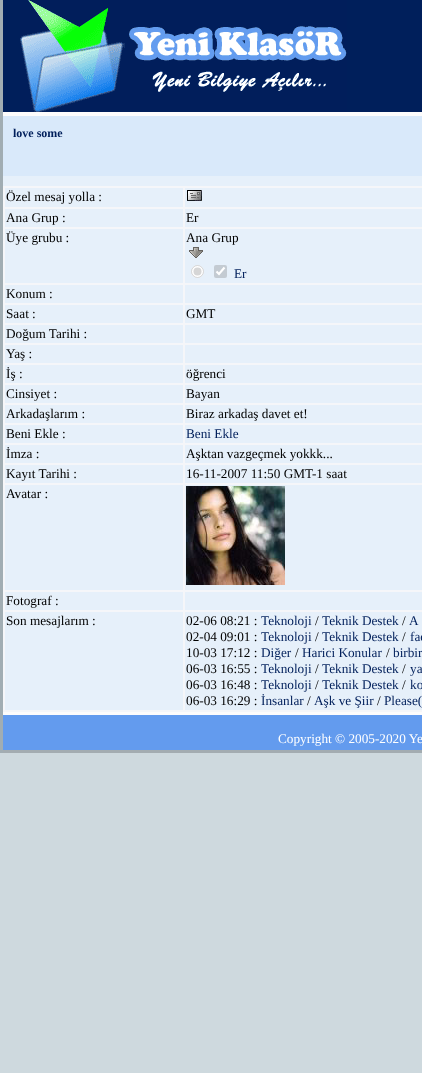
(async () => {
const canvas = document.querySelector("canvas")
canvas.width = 422
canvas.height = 1073
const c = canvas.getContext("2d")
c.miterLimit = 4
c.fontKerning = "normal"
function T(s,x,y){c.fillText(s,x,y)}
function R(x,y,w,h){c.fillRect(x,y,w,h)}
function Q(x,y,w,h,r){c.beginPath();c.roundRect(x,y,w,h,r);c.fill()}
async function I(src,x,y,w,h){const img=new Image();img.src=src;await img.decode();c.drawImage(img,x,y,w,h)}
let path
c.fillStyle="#ced9de"
R(0,0,422,1073)
await I("1.png",0,0,422,753)
c.fillStyle="#001f5b"
R(3,0,419,112)
await I("2.png",20,0,327,112)
c.fillStyle="#d9e9fa"
R(3,116,419,60)
c.font="bold 12px Liberation Serif"
c.fillStyle="#001f5b"
T("love some",13,137)
c.fillStyle="#e6f0fa"
R(3,176,419,10)
c.fillStyle="#f5f6f9"
R(3,186,419,526)
c.fillStyle="#e6f0fa"
R(5,188,178,19)
c.font="13.25px Liberation Serif"
c.fillStyle="#000"
T("Özel mesaj yolla :",6,201)
c.fillStyle="#e6f0fa"
R(185,188,237,19)
await I("3.png",187,190,15,11)
R(5,209,178,18)
c.fillStyle="#000"
T("Ana Grup :",6,222)
c.fillStyle="#e6f0fa"
R(185,209,237,18)
c.fillStyle="#000"
T("Er",186,222)
c.fillStyle="#e6f0fa"
R(5,229,178,54)
c.fillStyle="#000"
T("Üye grubu :",6,242)
c.fillStyle="#e6f0fa"
R(185,229,237,54)
c.fillStyle="#000"
T("Ana Grup",186,242)
await I("4.png",189,247,14,11)
c.fillStyle="#fff"
c.beginPath()
c.arc(197.5,271.5,6.5,0,7)
c.fill()
c.beginPath()
c.arc(197.5,271.5,6,0,7)
c.strokeStyle="#7676764d"
c.stroke()
c.fillStyle="#d6d6d6"
c.beginPath()
c.arc(197.5,271.5,4,0,7)
c.fill()
c.fillStyle="#c4cbd2"
Q(214,265,13,13,2)
path = new Path2D("M216.5 271.5l2.5 2.5l5.5-6.5")
c.strokeStyle="#fff"
c.lineWidth=2.1
c.stroke(path)
c.fillStyle="#001f5b"
T("Er",234,278)
c.fillStyle="#e6f0fa"
R(5,285,178,18)
c.fillStyle="#000"
T("Konum :",6,298)
c.fillStyle="#e6f0fa"
R(185,285,237,18)
R(5,305,178,18)
c.fillStyle="#000"
T("Saat :",6,318)
c.fillStyle="#e6f0fa"
R(185,305,237,18)
c.fillStyle="#000"
T("GMT",186,318)
c.fillStyle="#e6f0fa"
R(5,325,178,18)
c.fillStyle="#000"
T("Doğum Tarihi :",6,338)
c.fillStyle="#e6f0fa"
R(185,325,237,18)
R(5,345,178,18)
c.fillStyle="#000"
T("Yaş :",6,358)
c.fillStyle="#e6f0fa"
R(185,345,237,18)
R(5,365,178,18)
c.fillStyle="#000"
T("İş :",6,378)
c.fillStyle="#e6f0fa"
R(185,365,237,18)
c.fillStyle="#000"
T("öğrenci",186,378)
c.fillStyle="#e6f0fa"
R(5,385,178,18)
c.fillStyle="#000"
T("Cinsiyet :",6,398)
c.fillStyle="#e6f0fa"
R(185,385,237,18)
c.fillStyle="#000"
T("Bayan",186,398)
c.fillStyle="#e6f0fa"
R(5,405,178,18)
c.fillStyle="#000"
T("Arkadaşlarım :",6,418)
c.fillStyle="#e6f0fa"
R(185,405,237,18)
c.fillStyle="#000"
T("Biraz arkadaş davet et!",186,418)
c.fillStyle="#e6f0fa"
R(5,425,178,18)
c.fillStyle="#000"
T("Beni Ekle :",6,438)
c.fillStyle="#e6f0fa"
R(185,425,237,18)
c.fillStyle="#001f5b"
T("Beni Ekle",186,438)
c.fillStyle="#e6f0fa"
R(5,445,178,18)
c.fillStyle="#000"
T("İmza :",6,458)
c.fillStyle="#e6f0fa"
R(185,445,237,18)
c.fillStyle="#000"
T("Aşktan vazgeçmek yokkk...",186,458)
c.fillStyle="#e6f0fa"
R(5,465,178,18)
c.fillStyle="#000"
T("Kayıt Tarihi :",6,478)
c.fillStyle="#e6f0fa"
R(185,465,237,18)
c.fillStyle="#000"
T("16-11-2007 11:50 GMT-1 saat",186,478)
c.fillStyle="#e6f0fa"
R(5,485,178,105)
c.fillStyle="#000"
T("Avatar :",6,498)
c.fillStyle="#e6f0fa"
R(185,485,237,105)
await I("5.png",186,486,99,99)
R(5,592,178,18)
c.fillStyle="#000"
T("Fotograf :",6,605)
c.fillStyle="#e6f0fa"
R(185,592,237,18)
R(5,612,178,98)
c.fillStyle="#000"
T("Son mesajlarım :",6,625)
c.fillStyle="#e6f0fa"
R(185,612,237,98)
c.fillStyle="#000"
T("02-06 08:21 :",186,625)
c.fillStyle="#001f5b"
T("Teknoloji",261,625)
c.fillStyle="#000"
T("/",315,625)
c.fillStyle="#001f5b"
T("Teknik Destek",322,625)
c.fillStyle="#000"
T("/",402,625)
c.fillStyle="#001f5b"
T("A",409,625)
c.fillStyle="#000"
T("02-04 09:01 :",186,641)
c.fillStyle="#001f5b"
T("Teknoloji",261,641)
c.fillStyle="#000"
T("/",315,641)
c.fillStyle="#001f5b"
T("Teknik Destek",322,641)
c.fillStyle="#000"
T("/",402,641)
c.fillStyle="#001f5b"
T("fac",410,641)
c.fillStyle="#000"
T("10-03 17:12 :",186,657)
c.fillStyle="#001f5b"
T("Diğer",261,657)
c.fillStyle="#000"
T("/",295,657)
c.fillStyle="#001f5b"
T("Harici Konular",302,657)
c.fillStyle="#000"
T("/",386,657)
c.fillStyle="#001f5b"
T("birbir",393,657)
c.fillStyle="#000"
T("06-03 16:55 :",186,673)
c.fillStyle="#001f5b"
T("Teknoloji",261,673)
c.fillStyle="#000"
T("/",315,673)
c.fillStyle="#001f5b"
T("Teknik Destek",322,673)
c.fillStyle="#000"
T("/",402,673)
c.fillStyle="#001f5b"
T("ya",410,673)
c.fillStyle="#000"
T("06-03 16:48 :",186,689)
c.fillStyle="#001f5b"
T("Teknoloji",261,689)
c.fillStyle="#000"
T("/",315,689)
c.fillStyle="#001f5b"
T("Teknik Destek",322,689)
c.fillStyle="#000"
T("/",402,689)
c.fillStyle="#001f5b"
T("ko",410,689)
c.fillStyle="#000"
T("06-03 16:29 :",186,705)
c.fillStyle="#001f5b"
T("İnsanlar",261,705)
c.fillStyle="#000"
T("/",307,705)
c.fillStyle="#001f5b"
T("Aşk ve Şiir",314,705)
c.fillStyle="#000"
T("/",377,705)
c.fillStyle="#001f5b"
T("Please(",384,705)
c.fillStyle="#639bee"
R(3,715,419,35)
c.fillStyle="#a3acb1"
R(3,750,419,3)
c.fillStyle="#fff"
T("Copyright © 2005-2020 Ye",278,743)
})()
